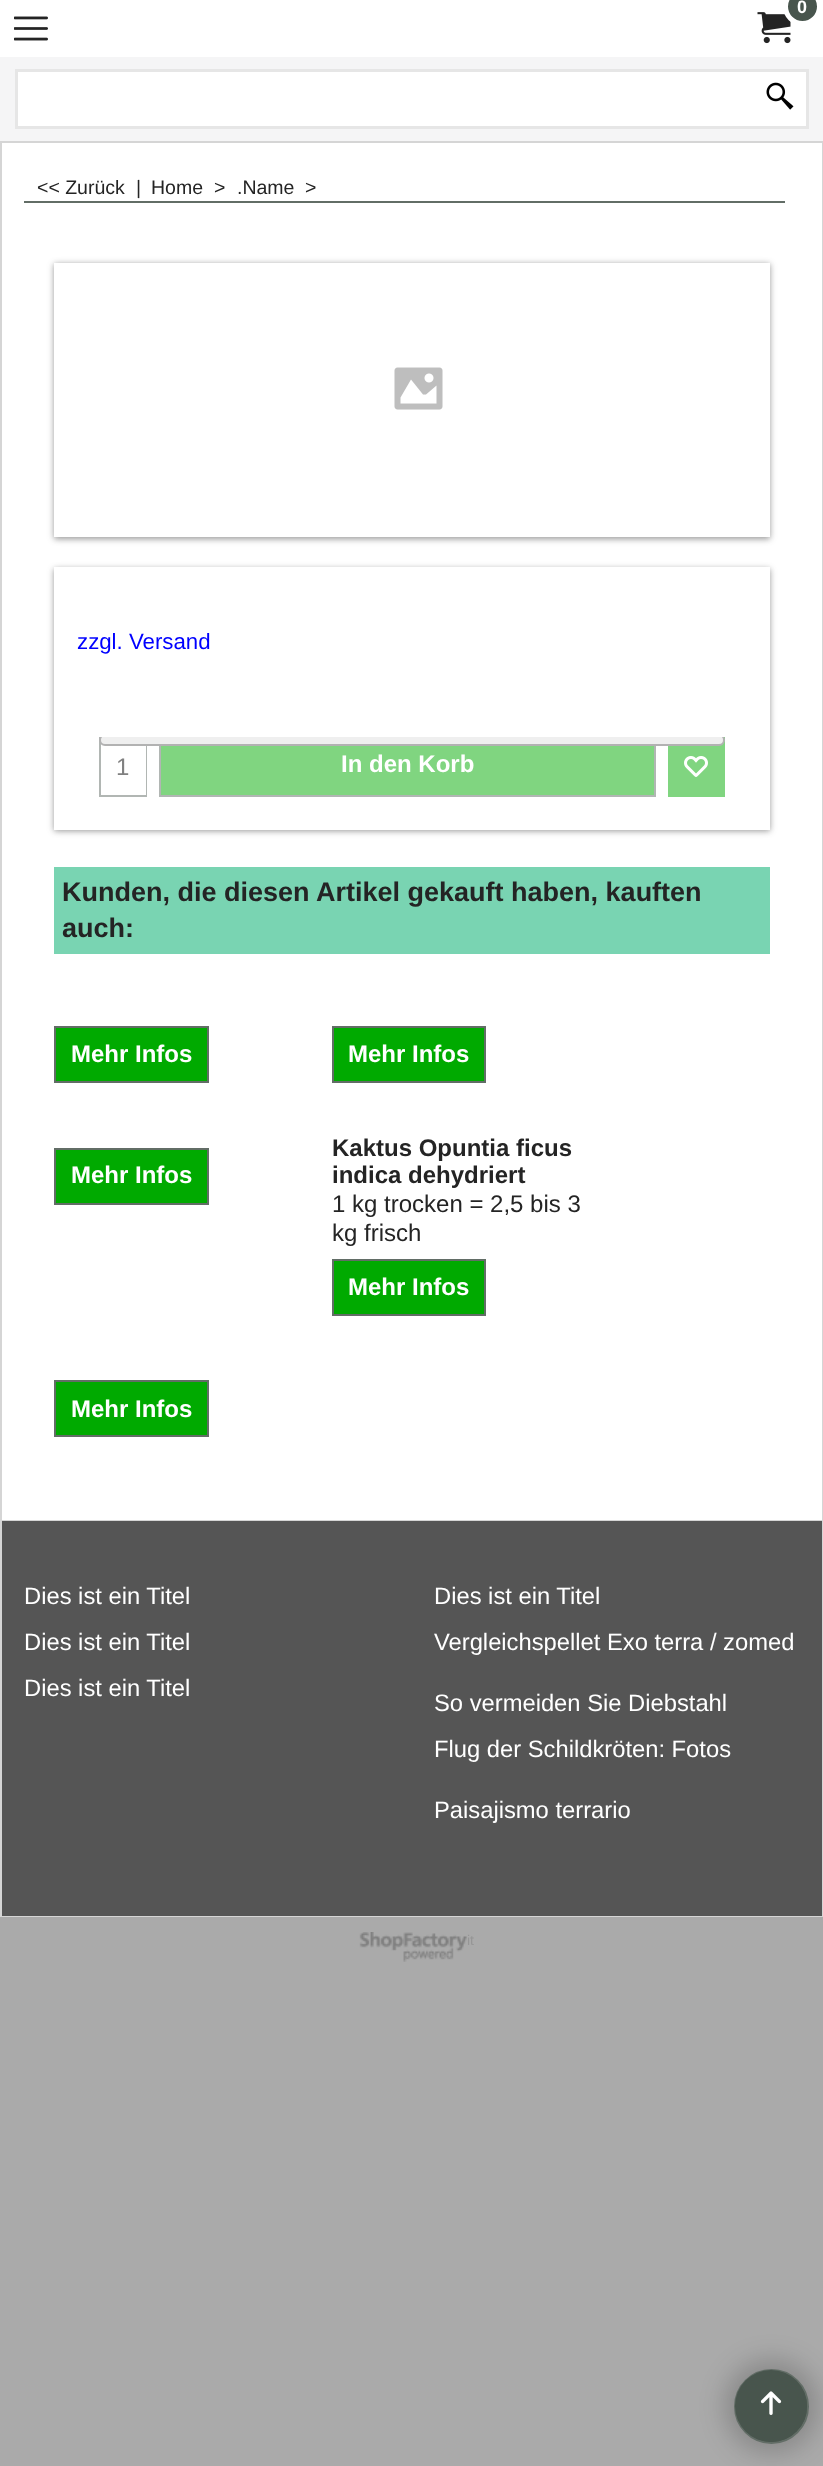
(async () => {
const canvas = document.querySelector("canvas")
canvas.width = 823
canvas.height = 2466
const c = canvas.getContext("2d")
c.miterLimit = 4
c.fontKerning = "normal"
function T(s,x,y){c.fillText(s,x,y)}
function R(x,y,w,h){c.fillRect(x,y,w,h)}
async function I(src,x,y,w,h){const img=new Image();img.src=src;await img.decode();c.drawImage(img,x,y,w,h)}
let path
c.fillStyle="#aaa"
R(0,0,823,2466)
c.fillStyle="#fff"
R(0,0,823,57)
await I("1.png",757,12,34,32)
c.fillStyle="#48554d"
c.beginPath()
c.arc(802.5,6.5,17,0,7)
c.fill()
c.strokeStyle="#fff"
c.lineWidth=5
c.stroke()
c.font="bold 18px Liberation Sans"
c.fillStyle="#fff"
T("0",797,13)
await I("2.png",14,16,34,25)
c.fillStyle="#f5f5f6"
R(0,57,823,84)
c.fillStyle="#fff"
c.beginPath()
c.rect(16.5,70.5,791,57)
c.fill()
c.strokeStyle="#e6e6e6"
c.lineWidth=3
c.stroke()
await I("3.png",766,82,28,28)
R(2,143,820,1377)
c.strokeStyle="#d5d5d5"
c.lineWidth=2
c.strokeRect(1,142,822,1774)
c.fillStyle="#626d66"
R(24,201,761,2)
c.font="19.5px Liberation Sans"
c.fillStyle="#242424"
T("<< Zurück",37,194)
T("|",136,194)
T("Home",151,194)
T(">",214,194)
T(".Name",237,194)
T(">",305,194)
c.save()
path = new Path2D("M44 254h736v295h-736zm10 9h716v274h-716z")
c.clip(path,"evenodd")
c.fillStyle="#32323280"
c.filter="blur(3px)"
c.beginPath()
c.rect(54,264,716,275)
c.fill()
c.filter="none"
c.restore()
await I("4.png",394,367,49,43)
c.save()
path = new Path2D("M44 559h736v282h-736zm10 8h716v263h-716z")
c.clip(path,"evenodd")
c.fillStyle="#32323280"
c.filter="blur(3px)"
c.beginPath()
c.rect(54,569,716,262)
c.fill()
c.filter="none"
c.restore()
c.font="22.25px Liberation Sans"
c.fillStyle="#00f"
T("zzgl. Versand",77,649)
c.strokeStyle="#b1b6b3"
c.strokeRect(100,738,46,58)
c.fillStyle="#fff"
R(145,744,1,51)
c.fillStyle="#80d580"
R(161,746,493,49)
c.strokeRect(160,738,495,58)
R(668,737,57,60)
c.save()
c.beginPath()
c.rect(99,737,626,60)
c.clip()
c.fillStyle="#efefef"
c.beginPath()
c.roundRect(100,735,624,10,5)
c.fill()
c.strokeStyle="#b2b2b2"
c.stroke()
c.restore()
c.font="24px Liberation Sans"
c.fillStyle="#808080"
T("1",116,775)
c.font="bold 24px Liberation Sans"
c.fillStyle="#fff"
T("In den Korb",341,772)
await I("5.png",684,756,24,21)
c.fillStyle="#79d4b2"
R(54,867,716,87)
c.font="bold 27px Liberation Sans"
c.fillStyle="#242424"
T("Kunden, die diesen Artikel gekauft haben, kauften",62,901)
T("auch:",62,937)
c.fillStyle="#0a0"
c.beginPath()
c.rect(55,1027,153,55)
c.fill()
c.strokeStyle="#626d66"
c.stroke()
c.font="bold 24px Liberation Sans"
c.fillStyle="#fff"
T("Mehr Infos",71,1062)
c.fillStyle="#0a0"
c.beginPath()
c.rect(333,1027,152,55)
c.fill()
c.stroke()
c.fillStyle="#fff"
T("Mehr Infos",348,1062)
c.fillStyle="#0a0"
c.beginPath()
c.rect(55,1149,153,55)
c.fill()
c.stroke()
c.fillStyle="#fff"
T("Mehr Infos",71,1183)
c.fillStyle="#242424"
T("Kaktus Opuntia ficus",332,1156)
T("indica dehydriert",332,1183)
c.font="24px Liberation Sans"
T("1 kg trocken = 2,5 bis 3",332,1212)
T("kg frisch",332,1241)
c.fillStyle="#0a0"
c.beginPath()
c.rect(333,1260,152,55)
c.fill()
c.stroke()
c.font="bold 24px Liberation Sans"
c.fillStyle="#fff"
T("Mehr Infos",348,1295)
c.fillStyle="#0a0"
c.beginPath()
c.rect(55,1381,153,55)
c.fill()
c.stroke()
c.fillStyle="#fff"
T("Mehr Infos",71,1417)
c.fillStyle="#d5d5d5"
R(2,1520,820,1)
c.fillStyle="#555"
R(2,1521,820,395)
c.font="23.75px Liberation Sans"
c.fillStyle="#fff"
T("Dies ist ein Titel",24,1604)
T("Dies ist ein Titel",24,1650)
T("Dies ist ein Titel",24,1696)
T("Dies ist ein Titel",434,1604)
T("Vergleichspellet Exo terra / zomed",434,1650)
T("So vermeiden Sie Diebstahl",434,1711)
T("Flug der Schildkröten: Fotos",434,1757)
T("Paisajismo terrario",434,1818)
await I("6.png",359,1932,108,30)
c.font="14px Liberation Sans"
c.fillStyle="#969696"
T("it",467,1945)
c.fillStyle="#00000033"
c.filter="blur(13px)"
c.beginPath()
c.roundRect(725,2360,93,93,46.5)
c.fill()
c.filter="none"
c.fillStyle="#48554d"
c.beginPath()
c.arc(771.5,2406.5,36.5,0,7)
c.fill()
c.stroke()
c.beginPath()
c.arc(771,2406,36,0,7)
c.fill()
await I("7.png",760,2391,22,24)
})()
